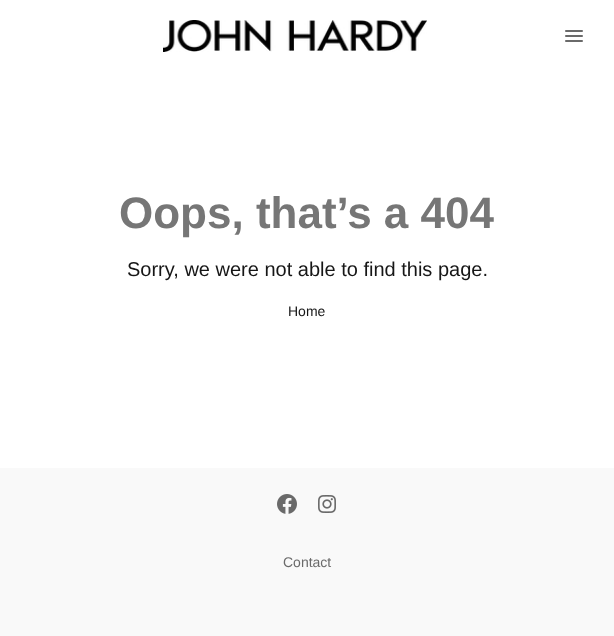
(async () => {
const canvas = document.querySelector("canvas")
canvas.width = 614
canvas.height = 636
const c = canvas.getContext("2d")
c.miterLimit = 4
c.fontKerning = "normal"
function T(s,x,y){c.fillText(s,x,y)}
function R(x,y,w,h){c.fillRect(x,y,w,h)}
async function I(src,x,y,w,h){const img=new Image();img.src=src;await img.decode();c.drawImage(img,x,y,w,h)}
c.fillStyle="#fff"
R(0,0,614,636)
await I("1.png",163,20,264,32)
await I("2.png",565,30,18,12)
c.font="bold 44px Liberation Sans"
c.fillStyle="#767676"
T("Oops, that’s a 404",119,228)
c.font="20px Liberation Sans"
c.fillStyle="#161616"
T("Sorry, we were not able to find this page.",127,276)
c.font="14px Liberation Sans"
T("Home",288,316)
c.fillStyle="#f9f9f9"
R(0,468,614,168)
await I("3.png",277,494,20,20)
await I("4.png",318,495,18,18)
c.fillStyle="#6a6a6a"
T("Contact",283,567)
})()
